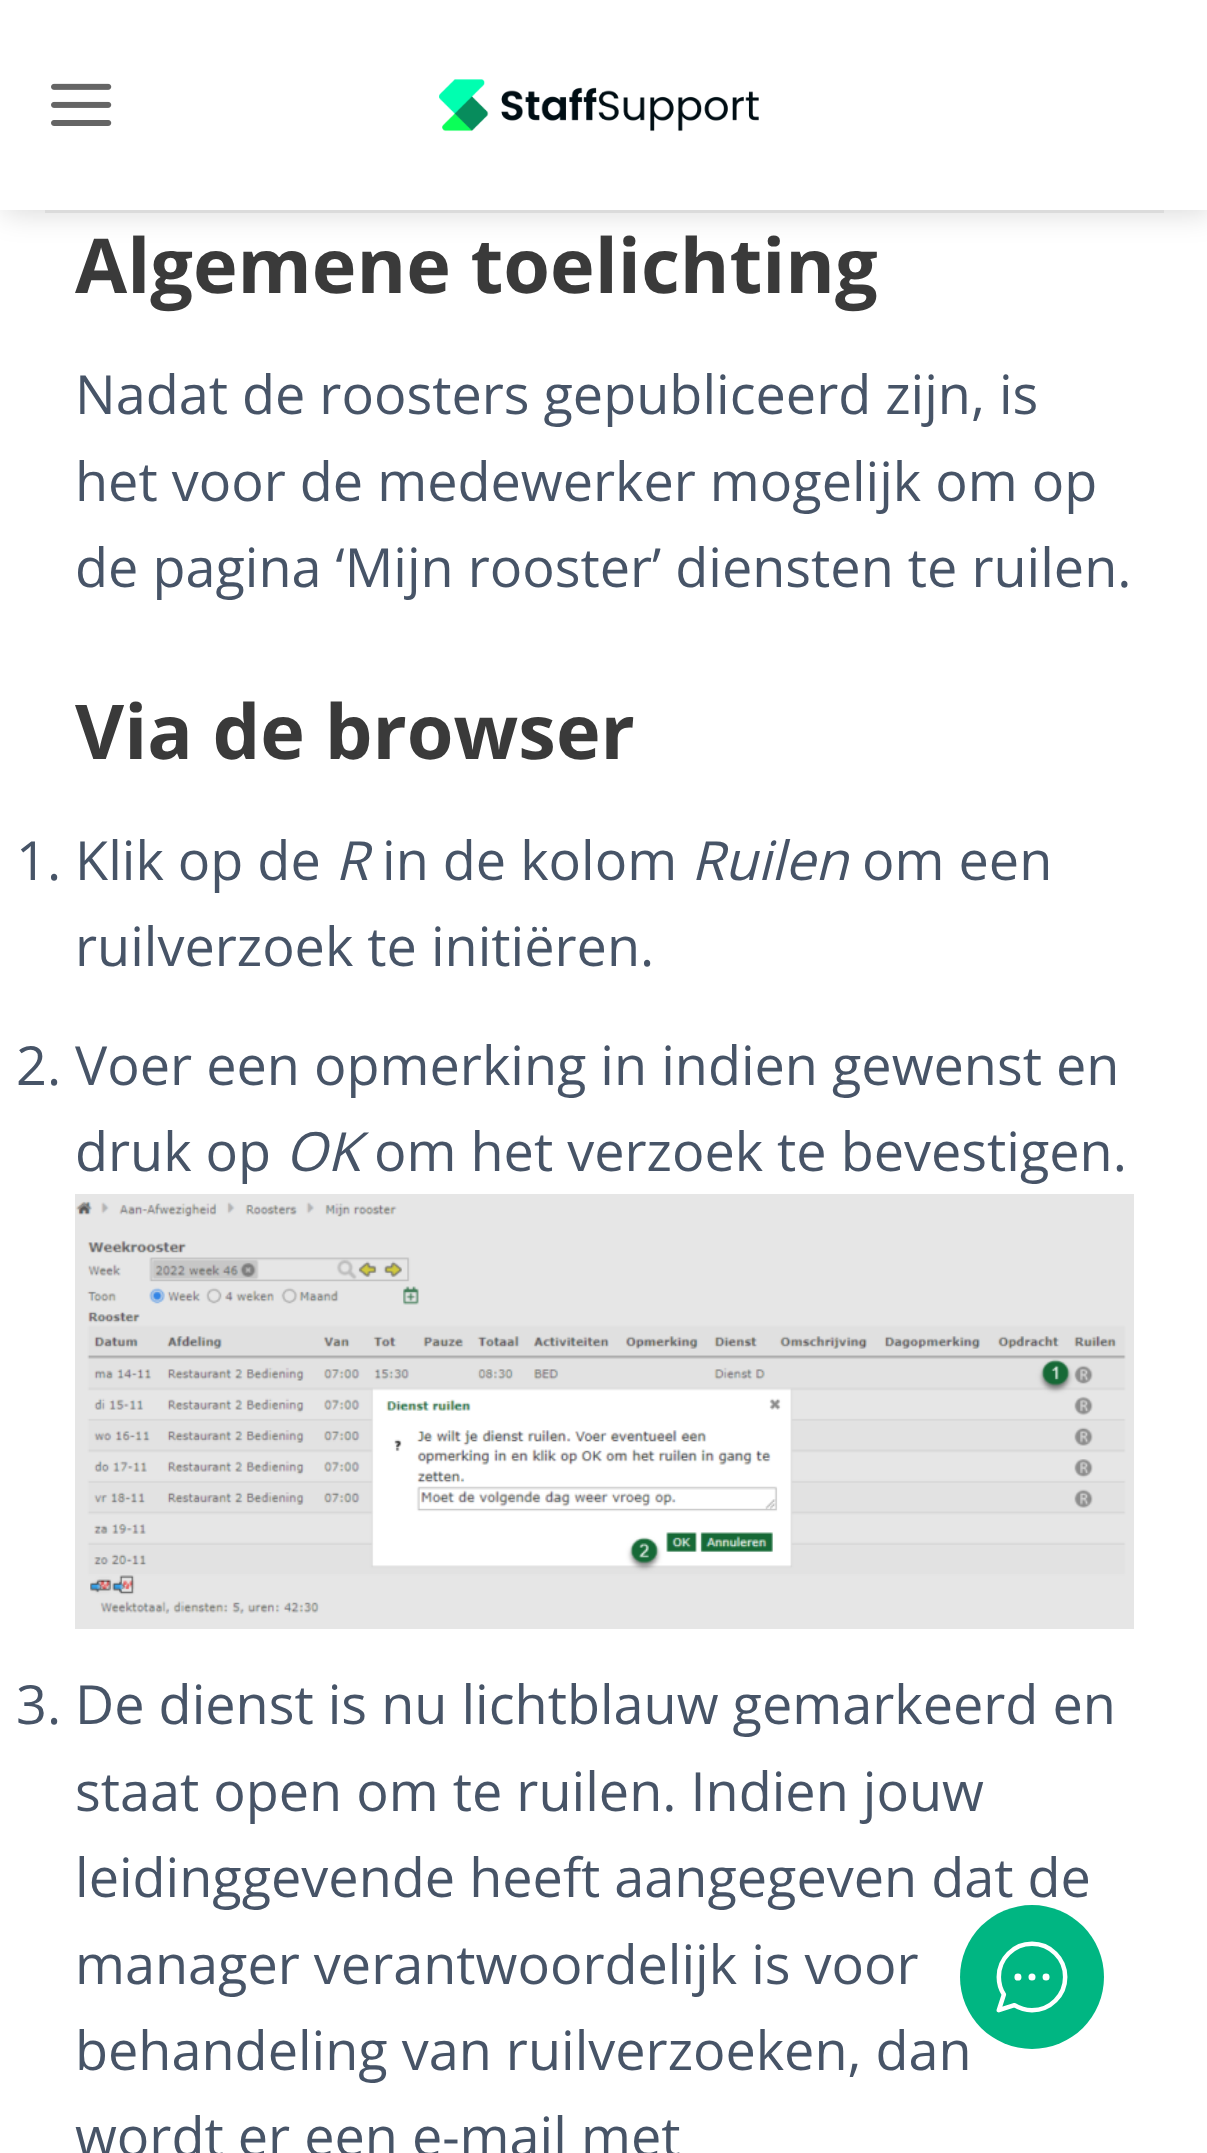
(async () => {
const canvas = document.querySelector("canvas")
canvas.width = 1207
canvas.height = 2153
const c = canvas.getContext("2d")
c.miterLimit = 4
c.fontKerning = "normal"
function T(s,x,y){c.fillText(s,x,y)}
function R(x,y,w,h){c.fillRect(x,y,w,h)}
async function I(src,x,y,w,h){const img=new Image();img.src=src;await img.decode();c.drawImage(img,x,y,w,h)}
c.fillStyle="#fff"
R(0,0,1207,2153)
c.fillStyle="#00000026"
c.filter="blur(15px)"
c.beginPath()
c.rect(3,3,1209,210)
c.fill()
c.filter="none"
c.fillStyle="#fff"
R(0,0,1207,210)
await I("1.png",51,83,61,43)
await I("2.png",439,79,320,53)
c.fillStyle="#dbdbdb"
R(45,210,1119,3)
c.font="bold 75.6px Open Sans"
c.fillStyle="#3a3a3a"
T("Algemene toelichting",75,293)
c.font="54px Open Sans"
c.fillStyle="#475467"
T("Nadat de roosters gepubliceerd zijn, is",75,414)
T("het voor de medewerker mogelijk om op",75,501)
T("de pagina ‘Mijn rooster’ diensten te ruilen.",75,587)
c.font="bold 75.6px Open Sans"
c.fillStyle="#3a3a3a"
T("Via de browser",75,759)
c.font="54px Open Sans"
c.fillStyle="#475467"
T("1. Klik op de",16,880)
c.font="italic 54px Open Sans"
T("R",335,880)
c.font="54px Open Sans"
T("in de kolom",382,880)
c.font="italic 54px Open Sans"
T("Ruilen",691,880)
c.font="54px Open Sans"
T("om een",862,880)
T("ruilverzoek te initiëren.",75,966)
T("2. Voer een opmerking in indien gewenst en",16,1085)
T("druk op",75,1171)
c.font="italic 54px Open Sans"
T("OK",285,1171)
c.font="54px Open Sans"
T("om het verzoek te bevestigen.",374,1171)
await I("3.png",75,1194,1059,435)
T("3. De dienst is nu lichtblauw gemarkeerd en",16,1724)
T("staat open om te ruilen. Indien jouw",75,1811)
T("leidinggevende heeft aangegeven dat de",75,1897)
T("manager verantwoordelijk is voor",75,1984)
T("behandeling van ruilverzoeken, dan",75,2070)
T("wordt er een e-mail met",75,2156)
c.fillStyle="#00b682"
c.beginPath()
c.arc(1032,1977,72,0,7)
c.fill()
await I("4.png",996,1941,72,72)
})()
